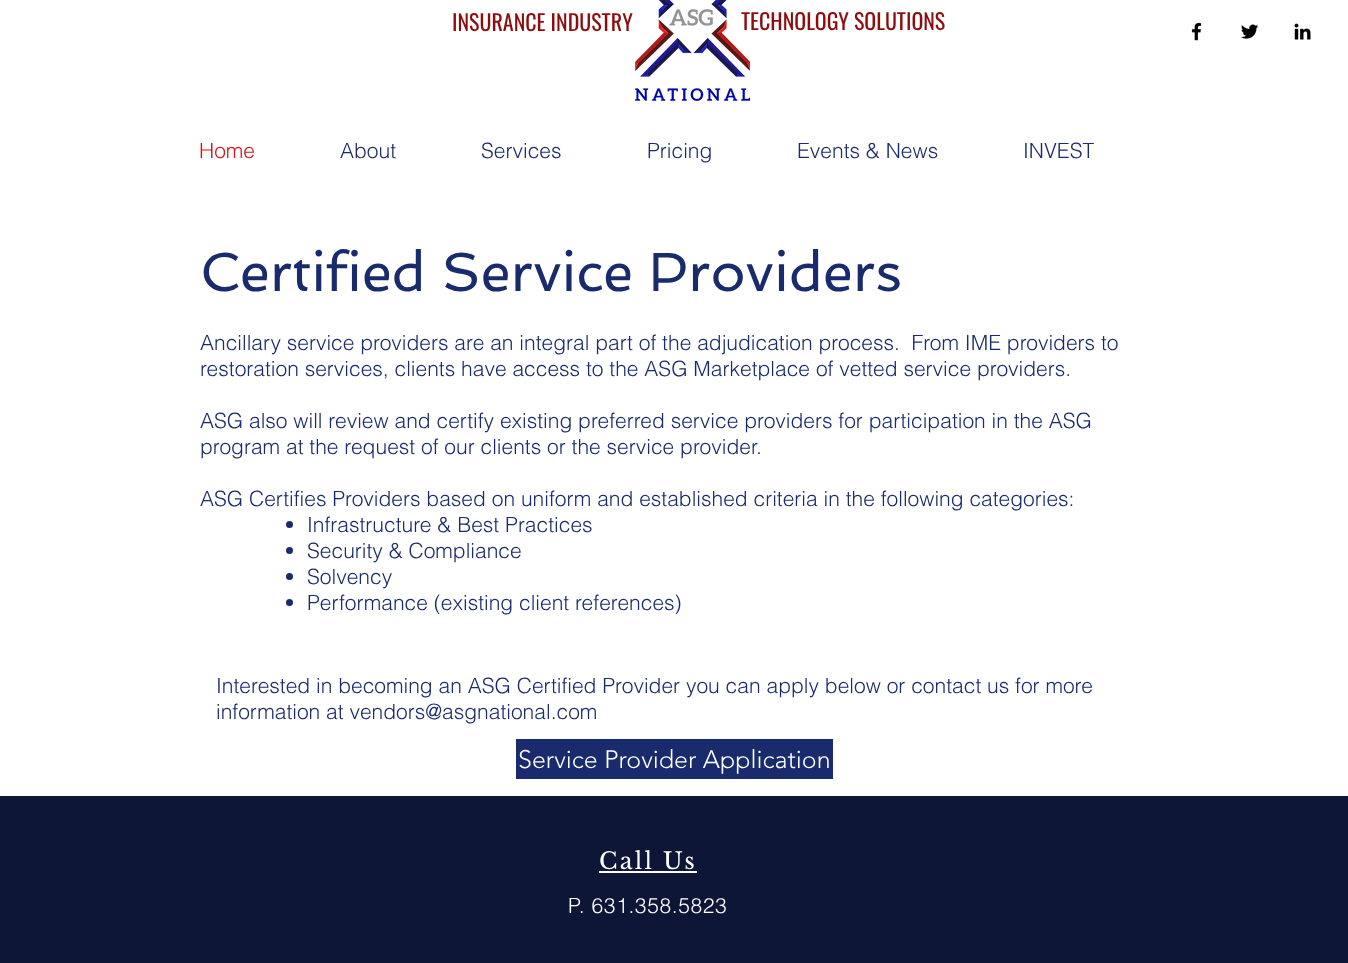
(async () => {
const canvas = document.querySelector("canvas")
canvas.width = 1348
canvas.height = 963
const c = canvas.getContext("2d")
c.miterLimit = 4
c.fontKerning = "normal"
function T(s,x,y){c.fillText(s,x,y)}
function R(x,y,w,h){c.fillRect(x,y,w,h)}
async function I(src,x,y,w,h){const img=new Image();img.src=src;await img.decode();c.drawImage(img,x,y,w,h)}
c.fillStyle="#fff"
R(0,0,1348,963)
c.font="22px Oswald"
c.fillStyle="#8d0d0f"
T("INSURANCE INDUSTRY",452,31)
T("TECHNOLOGY SOLUTIONS",741,30)
await I("1.png",635,0,115,101)
await I("2.png",1191,22,11,19)
await I("3.png",1241,24,18,15)
await I("4.png",1294,23,17,17)
c.font="300 21px helvetica"
c.fillStyle="#d41317"
T("Home",199,158)
c.fillStyle="#1a2b6d"
T("About",340,158)
T("Services",481,158)
T("Pricing",647,158)
T("Events & News",797,158)
T("INVEST",1023,158)
c.font="55px Spinnaker"
T("Certified Service Providers",200,291)
c.font="300 21px helvetica"
T("Ancillary service providers are an integral part of the adjudication process.  From IME providers to",200,350)
T("restoration services, clients have access to the ASG Marketplace of vetted service providers.",200,376)
T("ASG also will review and certify existing preferred service providers for participation in the ASG",200,428)
T("program at the request of our clients or the service provider.",200,454)
T("ASG Certifies Providers based on uniform and established criteria in the following categories:",200,506)
c.beginPath()
c.arc(289.5,524.5,3.5,0,7)
c.fill()
T("Infrastructure & Best Practices",307,532)
c.beginPath()
c.arc(289.5,550.5,3.5,0,7)
c.fill()
T("Security & Compliance",307,558)
c.beginPath()
c.arc(289.5,576.5,3.5,0,7)
c.fill()
T("Solvency",307,584)
c.beginPath()
c.arc(289.5,602.5,3.5,0,7)
c.fill()
T("Performance (existing client references)",307,610)
T("Interested in becoming an ASG Certified Provider you can apply below or contact us for more",216,693)
T("information at vendors@asgnational.com",216,719)
R(516,739,317,40)
c.font="300 25px 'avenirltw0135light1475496'"
c.fillStyle="#fff"
T("Service Provider Application",518,768)
c.fillStyle="#0d1637"
R(0,796,1348,167)
c.letterSpacing="2.25px"
c.font="23px Libre Baskerville"
c.fillStyle="#fff"
T("Call Us",599,869)
c.fillStyle="#fffffe"
R(599,871,98,2)
c.letterSpacing="0.6px"
c.font="300 21px helvetica"
c.fillStyle="#fff"
T("P. 631.358.5823",568,913)
})()
